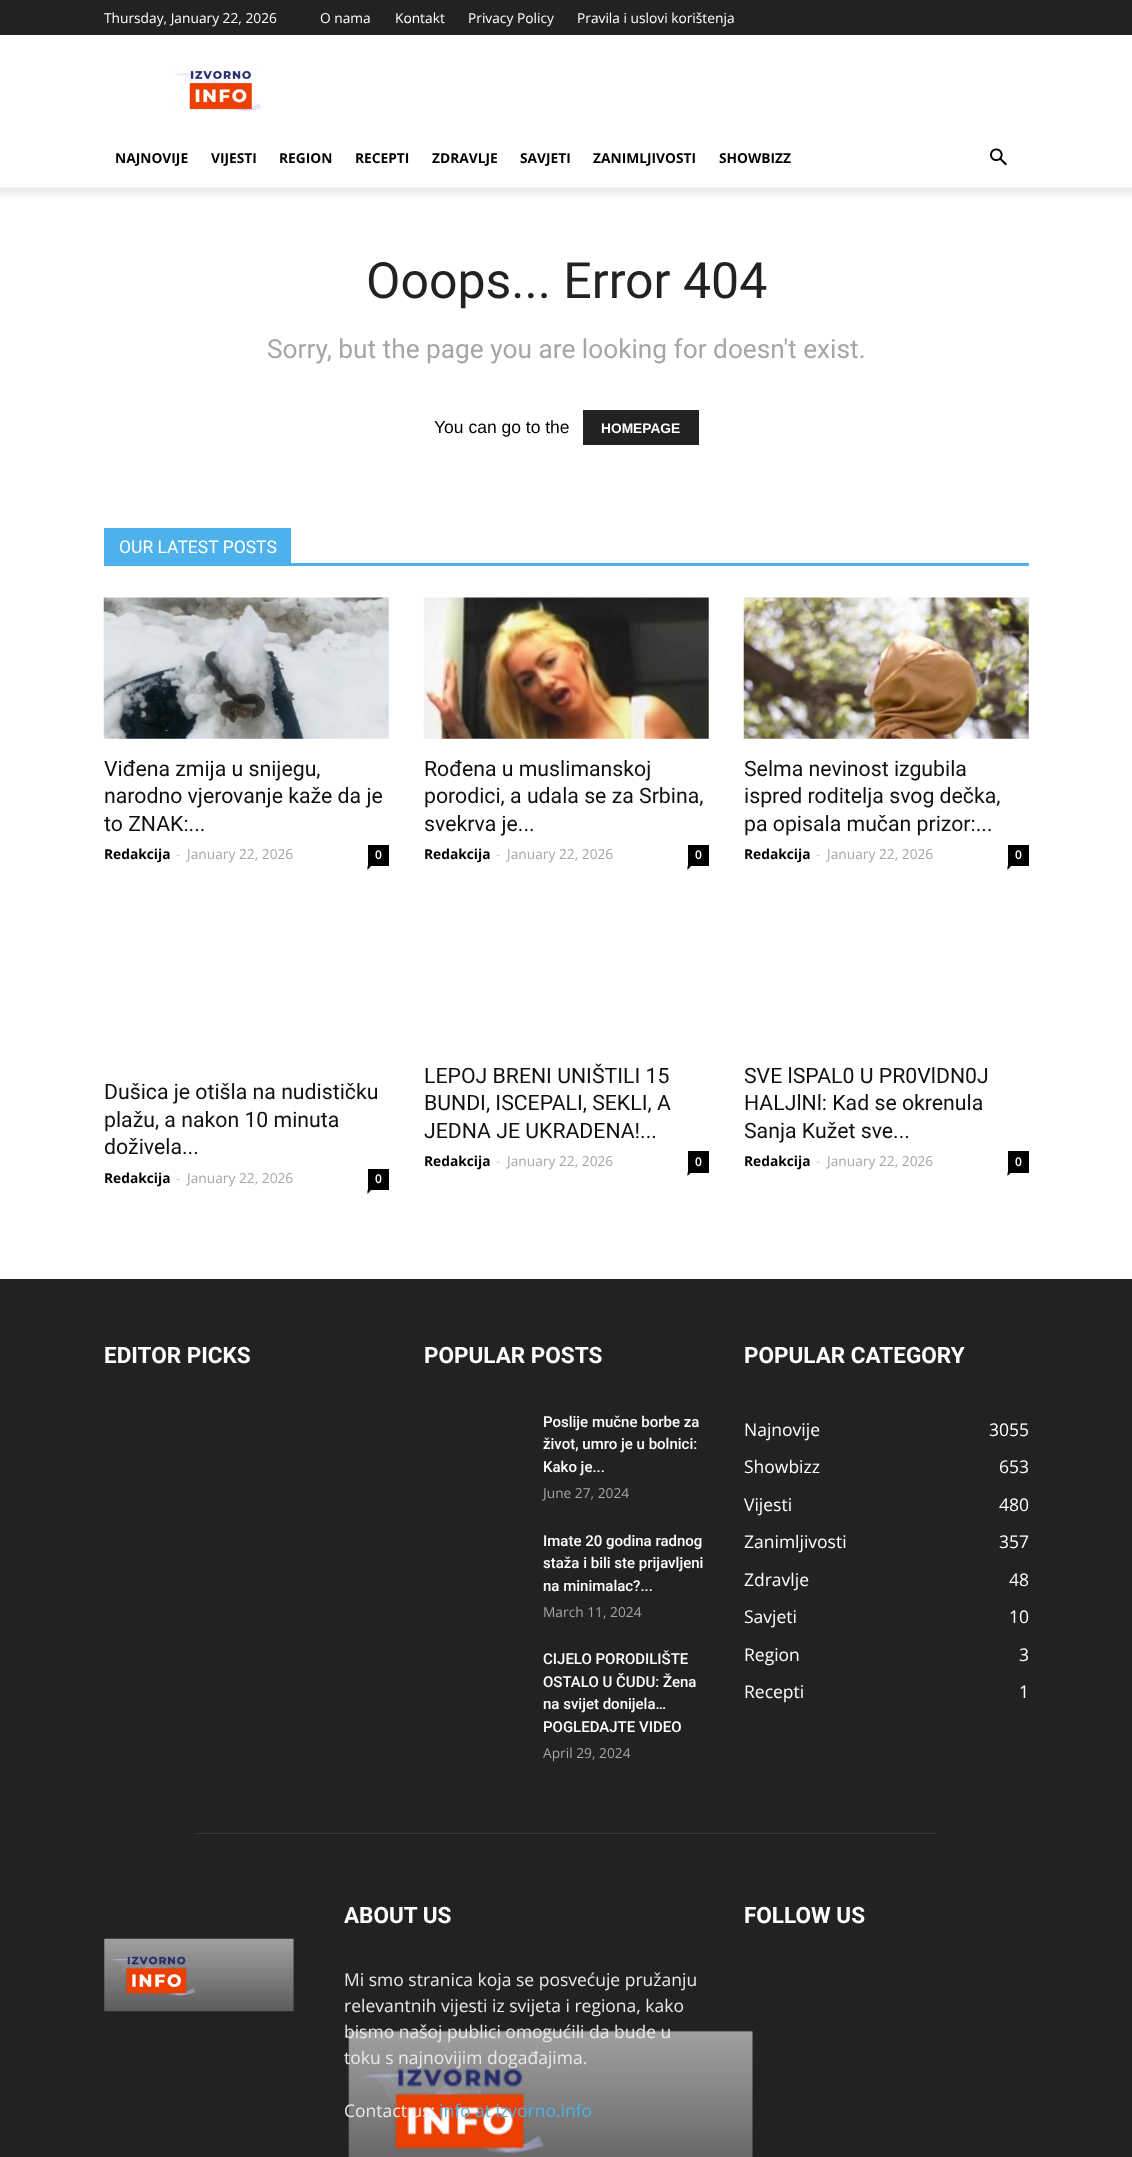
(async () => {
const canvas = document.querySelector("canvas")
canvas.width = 1132
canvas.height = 2157
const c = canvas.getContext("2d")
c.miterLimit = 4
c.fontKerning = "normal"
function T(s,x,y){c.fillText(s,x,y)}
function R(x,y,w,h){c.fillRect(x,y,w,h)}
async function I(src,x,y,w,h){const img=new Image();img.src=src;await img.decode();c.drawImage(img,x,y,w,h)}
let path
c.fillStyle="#fff"
R(0,0,1132,2157)
c.fillStyle="#222"
R(0,0,1132,35)
c.font="13.75px Open Sans"
c.fillStyle="#fff"
T("Thursday, January 22, 2026",104,23)
T("O nama",320,23)
T("Kontakt",395,23)
T("Privacy Policy",468,23)
T("Pravila i uslovi korištenja",577,23)
await I("1.png",173,70,89,41)
c.font="bold 13.75px Open Sans"
c.fillStyle="#000"
T("NAJNOVIJE",115,163)
T("VIJESTI",211,163)
T("REGION",279,163)
T("RECEPTI",355,163)
T("ZDRAVLJE",432,163)
T("SAVJETI",520,163)
T("ZANIMLJIVOSTI",593,163)
T("SHOWBIZZ",719,163)
await I("2.png",990,148,17,18)
await I("3.png",0,187,1132,11)
c.font="50px Roboto"
c.fillStyle="#222"
T("Ooops... Error 404",366,298)
c.font="26.25px Roboto"
c.fillStyle="#a6a6a6"
T("Sorry, but the page you are looking for doesn't exist.",267,358)
c.font="17.5px Liberation Sans"
c.fillStyle="#000"
T("You can go to the",434,433)
c.fillStyle="#222"
R(583,410,116,35)
c.font="bold 13.75px Liberation Sans"
c.fillStyle="#fff"
T("HOMEPAGE",601,433)
c.fillStyle="#4db2ec"
R(104,563,925,3)
R(104,528,187,35)
c.font="17.5px Roboto"
c.fillStyle="#fff"
T("OUR LATEST POSTS",119,553)
await I("4.png",103,597,286,142)
c.font="21.25px Roboto"
c.fillStyle="#111"
T("Viđena zmija u snijegu,",104,776)
T("narodno vjerovanje kaže da je",104,803)
T("to ZNAK:...",104,831)
c.font="bold 13.75px Open Sans"
c.fillStyle="#000"
T("Redakcija",104,859)
c.font="13.75px Open Sans"
c.fillStyle="#ccc"
T("-",176,859)
c.fillStyle="#a6a6a6"
T("January 22, 2026",187,859)
c.fillStyle="#000"
R(368,845,21,21)
c.font="600 12px Open Sans"
c.fillStyle="#fff"
T("0",375,859)
c.fillStyle="#000"
path = new Path2D("M367.5 866h3.5l-3.5 4z")
c.fill(path)
await I("5.png",423,597,286,142)
c.font="21.25px Roboto"
c.fillStyle="#111"
T("Rođena u muslimanskoj",424,776)
T("porodici, a udala se za Srbina,",424,803)
T("svekrva je...",424,831)
c.font="bold 13.75px Open Sans"
c.fillStyle="#000"
T("Redakcija",424,859)
c.font="13.75px Open Sans"
c.fillStyle="#ccc"
T("-",496,859)
c.fillStyle="#a6a6a6"
T("January 22, 2026",507,859)
c.fillStyle="#000"
R(688,845,21,21)
c.font="600 12px Open Sans"
c.fillStyle="#fff"
T("0",695,859)
c.fillStyle="#000"
path = new Path2D("M687.5 866h3.5l-3.5 4z")
c.fill(path)
await I("6.png",743,597,286,142)
c.font="21.25px Roboto"
c.fillStyle="#111"
T("Selma nevinost izgubila",744,776)
T("ispred roditelja svog dečka,",744,803)
T("pa opisala mučan prizor:...",744,831)
c.font="bold 13.75px Open Sans"
c.fillStyle="#000"
T("Redakcija",744,859)
c.font="13.75px Open Sans"
c.fillStyle="#ccc"
T("-",816,859)
c.fillStyle="#a6a6a6"
T("January 22, 2026",827,859)
c.fillStyle="#000"
R(1008,845,21,21)
c.font="600 12px Open Sans"
c.fillStyle="#fff"
T("0",1015,859)
c.fillStyle="#000"
path = new Path2D("M1007.5 866h3.5l-3.5 4z")
c.fill(path)
c.font="21.25px Roboto"
c.fillStyle="#111"
T("Dušica je otišla na nudističku",104,1099)
T("plažu, a nakon 10 minuta",104,1127)
T("doživela...",104,1154)
c.font="bold 13.75px Open Sans"
c.fillStyle="#000"
T("Redakcija",104,1183)
c.font="13.75px Open Sans"
c.fillStyle="#ccc"
T("-",176,1183)
c.fillStyle="#a6a6a6"
T("January 22, 2026",187,1183)
c.fillStyle="#000"
R(368,1169,21,21)
c.font="600 12px Open Sans"
c.fillStyle="#fff"
T("0",375,1183)
c.fillStyle="#000"
path = new Path2D("M367.5 1190h3.5l-3.5 4z")
c.fill(path)
c.font="21.25px Roboto"
c.fillStyle="#111"
T("LEPOJ BRENI UNIŠTILI 15",424,1083)
T("BUNDI, ISCEPALI, SEKLI, A",424,1110)
T("JEDNA JE UKRADENA!...",424,1138)
c.font="bold 13.75px Open Sans"
c.fillStyle="#000"
T("Redakcija",424,1166)
c.font="13.75px Open Sans"
c.fillStyle="#ccc"
T("-",496,1166)
c.fillStyle="#a6a6a6"
T("January 22, 2026",507,1166)
c.fillStyle="#000"
R(688,1151,21,22)
c.font="600 12px Open Sans"
c.fillStyle="#fff"
T("0",695,1166)
c.fillStyle="#000"
path = new Path2D("M687.5 1172.5h3.5l-3.5 3.5z")
c.fill(path)
c.font="21.25px Roboto"
c.fillStyle="#111"
T("SVE lSPAL0 U PR0VlDN0J",744,1083)
T("HALJlNl: Kad se okrenula",744,1110)
T("Sanja Kužet sve...",744,1138)
c.font="bold 13.75px Open Sans"
c.fillStyle="#000"
T("Redakcija",744,1166)
c.font="13.75px Open Sans"
c.fillStyle="#ccc"
T("-",816,1166)
c.fillStyle="#a6a6a6"
T("January 22, 2026",827,1166)
c.fillStyle="#000"
R(1008,1151,21,22)
c.font="600 12px Open Sans"
c.fillStyle="#fff"
T("0",1015,1166)
c.fillStyle="#000"
path = new Path2D("M1007.5 1172.5h3.5l-3.5 3.5z")
c.fill(path)
c.fillStyle="#222"
R(0,1279,1132,878)
c.font="bold 22.5px Roboto"
c.fillStyle="#fff"
T("EDITOR PICKS",104,1363)
T("POPULAR POSTS",424,1363)
c.font="500 15px Roboto"
T("Poslije mučne borbe za",543,1427)
T("život, umro je u bolnici:",543,1449)
T("Kako je...",543,1472)
c.font="13.75px Open Sans"
c.fillStyle="#a6a6a6"
T("June 27, 2024",543,1498)
c.font="500 15px Roboto"
c.fillStyle="#fff"
T("Imate 20 godina radnog",543,1546)
T("staža i bili ste prijavljeni",543,1568)
T("na minimalac?...",543,1591)
c.font="13.75px Open Sans"
c.fillStyle="#a6a6a6"
T("March 11, 2024",543,1617)
c.font="500 15px Roboto"
c.fillStyle="#fff"
T("CIJELO PORODILIŠTE",543,1664)
T("OSTALO U ČUDU: Žena",543,1687)
T("na svijet donijela…",543,1709)
T("POGLEDAJTE VIDEO",543,1732)
c.font="13.75px Open Sans"
c.fillStyle="#a6a6a6"
T("April 29, 2024",543,1758)
c.font="bold 22.5px Roboto"
c.fillStyle="#fff"
T("POPULAR CATEGORY",744,1363)
c.font="17.5px Open Sans"
T("Najnovije",744,1436)
T("3055",989,1436)
T("Showbizz",744,1473)
T("653",999,1473)
T("Vijesti",744,1511)
T("480",999,1511)
T("Zanimljivosti",744,1548)
T("357",999,1548)
T("Zdravlje",744,1586)
T("48",1009,1586)
T("Savjeti",744,1623)
T("10",1009,1623)
T("Region",744,1661)
T("3",1019,1661)
T("Recepti",744,1698)
T("1",1019,1698)
c.fillStyle="#383838"
R(196,1833,740,1)
c.font="bold 22.5px Roboto"
c.fillStyle="#fff"
T("ABOUT US",344,1923)
c.font="17.5px Open Sans"
c.fillStyle="#eaeaea"
T("Mi smo stranica koja se posvećuje pružanju",344,1986)
T("relevantnih vijesti iz svijeta i regiona, kako",344,2012)
await I("8.png",348,2030,405,127)
T("bismo našoj publici omogućili da bude u",344,2038)
T("toku s najnovijim događajima.",344,2064)
T("Contact us:",344,2117)
c.fillStyle="#4db2ec"
T("info at izvorno.info",439,2117)
c.font="bold 22.5px Roboto"
c.fillStyle="#fff"
T("FOLLOW US",744,1923)
await I("7.png",104,1938,190,74)
})()
